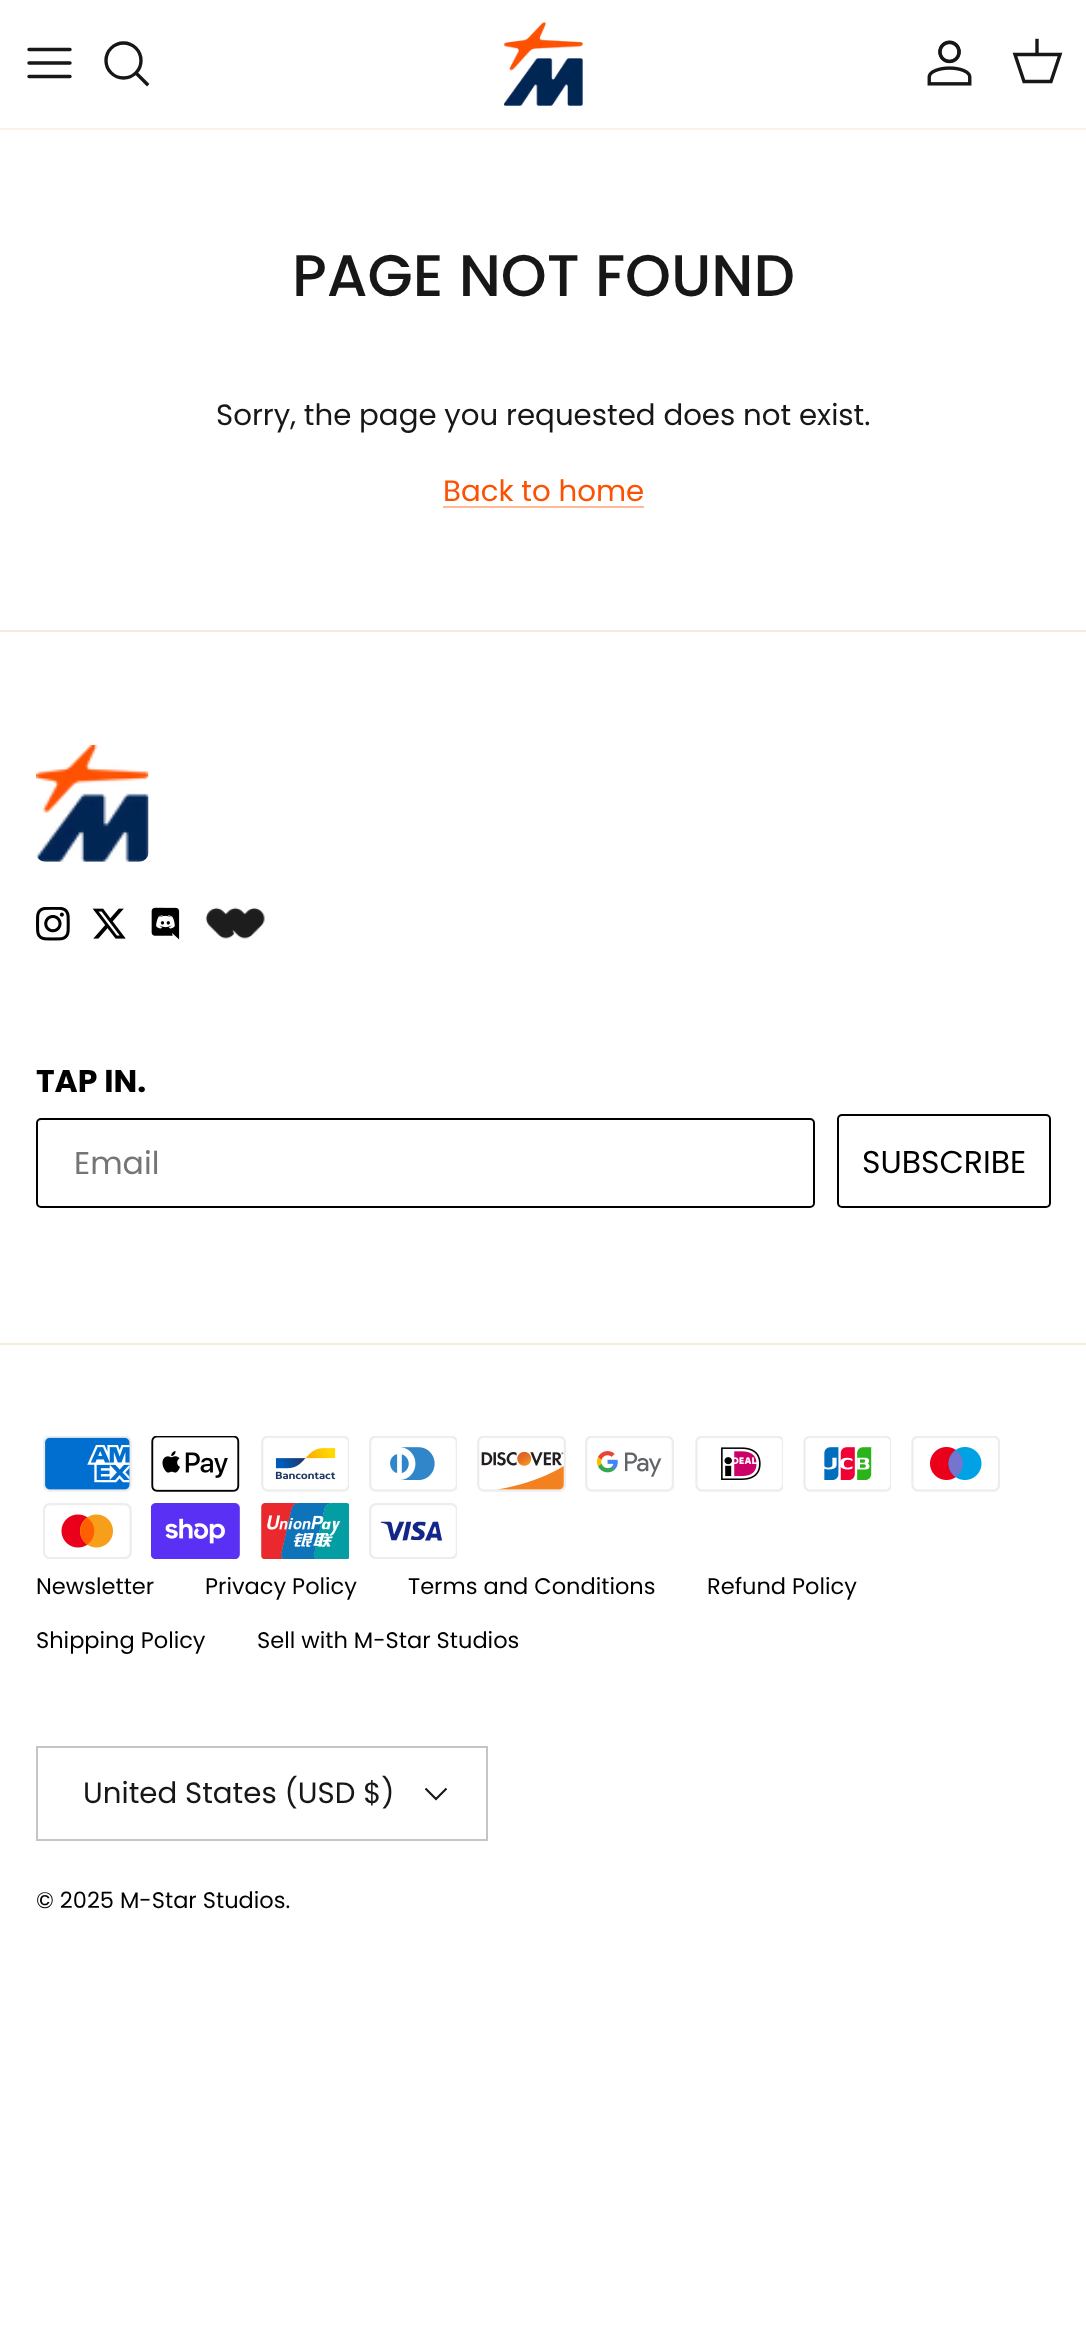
(async () => {
const canvas = document.querySelector("canvas")
canvas.width = 1086
canvas.height = 2332
const c = canvas.getContext("2d")
c.miterLimit = 4
c.fontKerning = "normal"
function T(s,x,y){c.fillText(s,x,y)}
function R(x,y,w,h){c.fillRect(x,y,w,h)}
async function I(src,x,y,w,h){const img=new Image();img.src=src;await img.decode();c.drawImage(img,x,y,w,h)}
let path
c.fillStyle="#fff"
R(0,0,1086,2332)
c.fillStyle="#faf2e6"
R(0,128,1086,2)
path = new Path2D("M29 63h41m-41-13.5h41m-41 27h41")
c.strokeStyle="#171717"
c.lineWidth=3.4
c.lineCap="round"
c.lineJoin="round"
c.stroke(path)
c.beginPath()
c.arc(123.5,60.5,17.5,0,7)
c.stroke()
path = new Path2D("M137 74l10 10")
c.lineCap="square"
c.lineJoin="miter"
c.stroke(path)
await I("1.png",504,22,79,84)
await I("2.png",927,40,45,46)
path = new Path2D("M1015 54.5h45l-9 27h-27z")
c.lineCap="butt"
c.stroke(path)
path = new Path2D("M1037 54v-13.5")
c.lineCap="square"
c.stroke(path)
c.font="500 58.5px Poppins"
c.fillStyle="#171717"
T("PAGE NOT FOUND",292,296)
c.font="29.25px Poppins"
T("Sorry, the page you requested does not exist.",216,425)
c.fillStyle="#fc5100"
T("Back to home",443,501)
c.fillStyle="#feb999"
R(443,506,201,2)
c.fillStyle="#f4ebdd"
R(0,630,1086,2)
await I("3.png",36,744,113,118)
await I("4.png",36,907,34,34)
await I("5.png",92,908,34,31)
await I("6.png",151,907,29,33)
await I("7.png",205,907,60,32)
c.font="bold 31.5px Poppins"
c.fillStyle="#000"
T("TAP IN.",36,1092)
c.beginPath()
c.roundRect(37,1119,777,88,4)
c.strokeStyle="#000"
c.lineWidth=2
c.stroke()
c.font="31.5px 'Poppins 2'"
c.fillStyle="#757575"
T("Email",74,1174)
c.beginPath()
c.roundRect(838,1115,212,92,4)
c.stroke()
c.fillStyle="#000"
T("SUBSCRIBE",862,1173)
c.fillStyle="#f4ebdd"
R(0,1343,1086,2)
await I("8.png",43,1436,89,56)
await I("9.png",151,1436,89,56)
await I("10.png",261,1436,88,56)
await I("11.png",369,1436,88,56)
await I("12.png",477,1436,89,56)
await I("13.png",585,1436,89,56)
await I("14.png",695,1436,88,56)
await I("15.png",803,1436,88,56)
await I("16.png",911,1436,89,56)
await I("17.png",43,1503,89,56)
await I("18.png",151,1503,89,56)
await I("19.png",261,1503,88,56)
await I("20.png",369,1503,88,56)
c.font="22.5px Poppins"
c.fillStyle="#000"
T("Newsletter",36,1594)
T("Privacy Policy",205,1594)
T("Terms and Conditions",408,1594)
T("Refund Policy",707,1594)
T("Shipping Policy",36,1648)
T("Sell with M-Star Studios",257,1648)
c.strokeStyle="#c5c5c5"
c.strokeRect(37,1747,450,93)
c.font="29.25px Poppins"
c.fillStyle="#171717"
T("United States (USD $)",83,1803)
path = new Path2D("M446.5 1788.5l-10.5 10.5l-10.5-10.5")
c.strokeStyle="#171717"
c.lineWidth=2.1
c.lineCap="butt"
c.stroke(path)
c.font="22.5px Poppins"
c.fillStyle="#000"
T("© 2025 M-Star Studios.",36,1908)
})()
